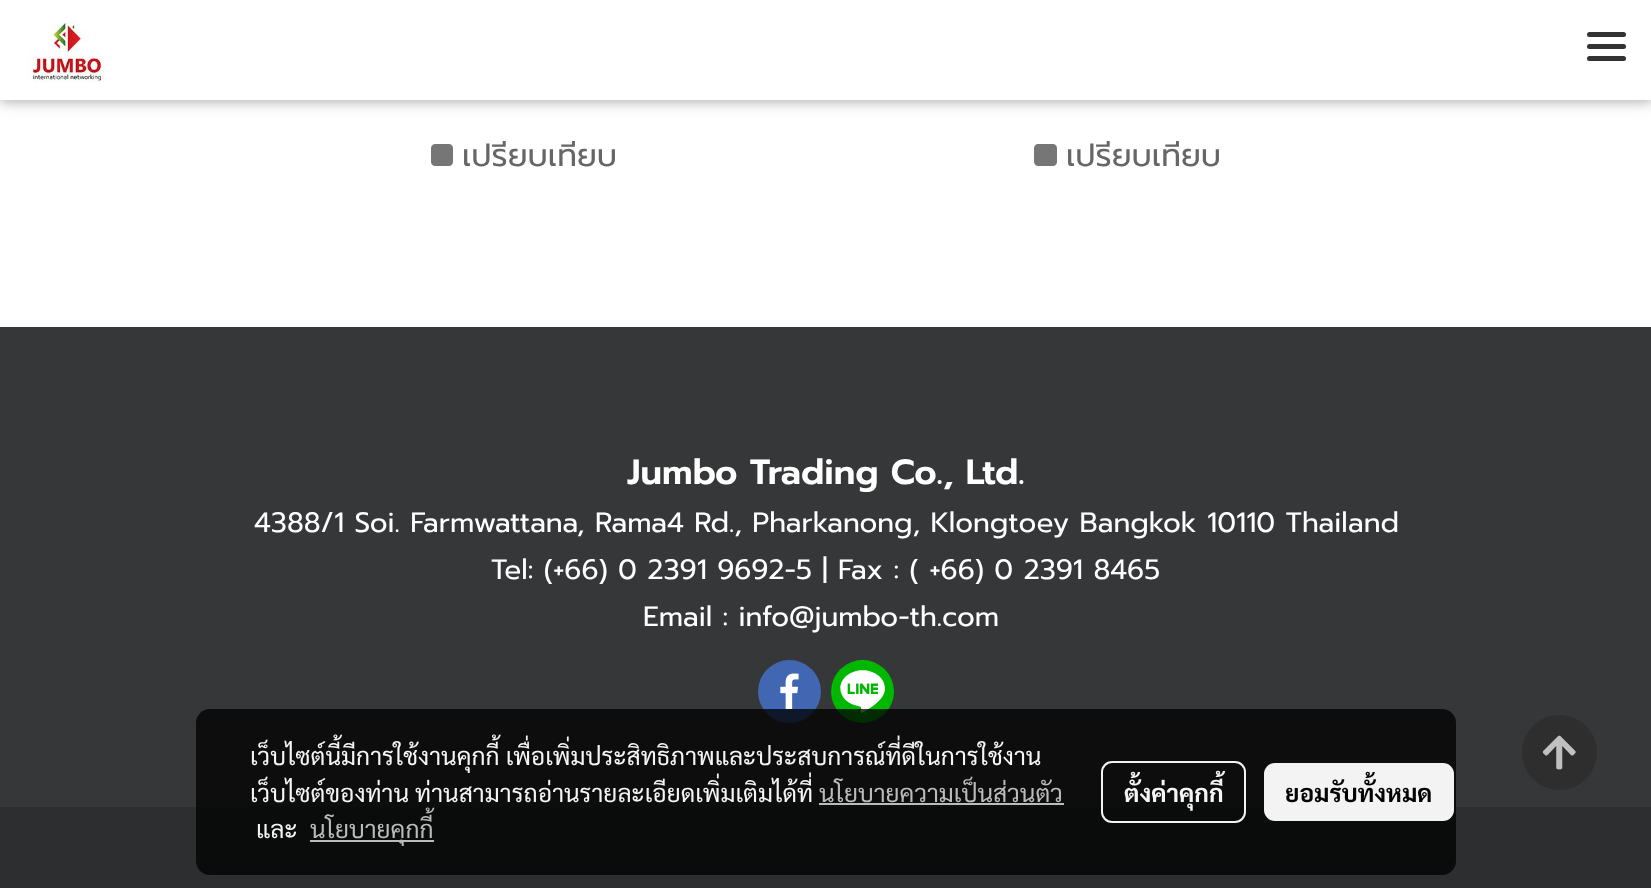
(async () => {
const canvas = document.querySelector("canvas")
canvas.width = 1651
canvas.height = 888
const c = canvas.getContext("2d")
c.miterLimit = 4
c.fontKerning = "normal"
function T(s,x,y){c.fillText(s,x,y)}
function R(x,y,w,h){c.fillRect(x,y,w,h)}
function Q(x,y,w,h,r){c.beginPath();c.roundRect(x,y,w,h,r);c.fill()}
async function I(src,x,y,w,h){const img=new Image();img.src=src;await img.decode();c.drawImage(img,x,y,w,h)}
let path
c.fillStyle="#fff"
R(0,0,1651,888)
c.fillStyle="#0000001f"
c.filter="blur(9px)"
c.beginPath()
c.rect(0,4,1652,99)
c.fill()
c.filter="none"
c.fillStyle="#00000029"
c.filter="blur(4.5px)"
c.beginPath()
c.rect(0,4,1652,99)
c.fill()
c.filter="none"
c.fillStyle="#fff"
R(0,0,1651,100)
await I("1.png",28,20,77,63)
c.fillStyle="#333"
Q(1587,44,39,5,2.5)
Q(1587,32,39,5,2.5)
Q(1587,56,39,5,2.5)
c.fillStyle="#767676"
path = new Path2D("M435 144h14c2 0 4 2 4 4v14c0 2-2 4-4 4h-14c-2 0-4-2-4-4v-14c0-2 2-4 4-4z")
c.fill(path)
c.font="31.5px Prompt"
c.fillStyle="#666"
T("เปรียบเทียบ",462,166)
c.fillStyle="#767676"
path = new Path2D("M1038 144h15c2 0 4 2 4 4v14c0 2-2 4-4 4h-15c-2 0-4-2-4-4v-14c0-2 2-4 4-4z")
c.fill(path)
c.fillStyle="#666"
T("เปรียบเทียบ",1066,166)
c.fillStyle="#363739"
R(0,327,1651,480)
c.font="600 35px Prompt"
c.fillStyle="#fff"
T("Jumbo Trading Co., Ltd.",627,484)
c.font="28px Prompt"
T("4388/1 Soi. Farmwattana, Rama4 Rd., Pharkanong, Klongtoey Bangkok 10110 Thailand",254,532)
T("Tel: (+66) 0 2391 9692-5 | Fax : ( +66) 0 2391 8465",491,579)
T("Email : info@jumbo-th.com",643,626)
c.fillStyle="#4267b2"
c.beginPath()
c.arc(789.5,691.5,31.5,0,7)
c.fill()
await I("2.png",780,673,19,36)
c.fillStyle="#00b800"
c.beginPath()
c.arc(862.5,691.5,31.5,0,7)
c.fill()
await I("3.png",832,660,62,62)
c.fillStyle="#2d2e30"
R(0,807,1651,81)
c.fillStyle="#000000c2"
Q(196,709,1260,166,14)
c.font="24.5px Sarabun"
c.fillStyle="#f5f5f5"
T("เว็บไซต์นี้มีการใช้งานคุกกี้ เพื่อเพิ่มประสิทธิภาพและประสบการณ์ที่ดีในการใช้งาน",250,765)
T("เว็บไซต์ของท่าน ท่านสามารถอ่านรายละเอียดเพิ่มเติมได้ที่",250,802)
c.fillStyle="#bbb"
T("นโยบายความเป็นส่วนตัว",819,802)
R(819,803,245,2)
c.fillStyle="#f5f5f5"
T("และ",256,838)
c.fillStyle="#bbb"
R(310,840,124,2)
T("นโยบายคุกกี้",310,838)
c.beginPath()
c.roundRect(1102,762,143,60,10)
c.strokeStyle="#f3f3f3"
c.lineWidth=2
c.stroke()
c.font="bold 24.5px Sarabun"
c.fillStyle="#f5f5f5"
T("ตั้งค่าคุกกี้",1124,802)
c.fillStyle="#f3f3f3"
Q(1264,763,190,58,11)
c.fillStyle="#030303"
T("ยอมรับทั้งหมด",1285,802)
c.fillStyle="#2e2e2f"
path = new Path2D("M1559 715c-20 0-37 17-37 37c0 21 17 38 37 38c21 0 38-17 38-38c0-20-17-37-38-37z")
c.fill(path)
await I("4.png",1542,735,34,35)
})()
